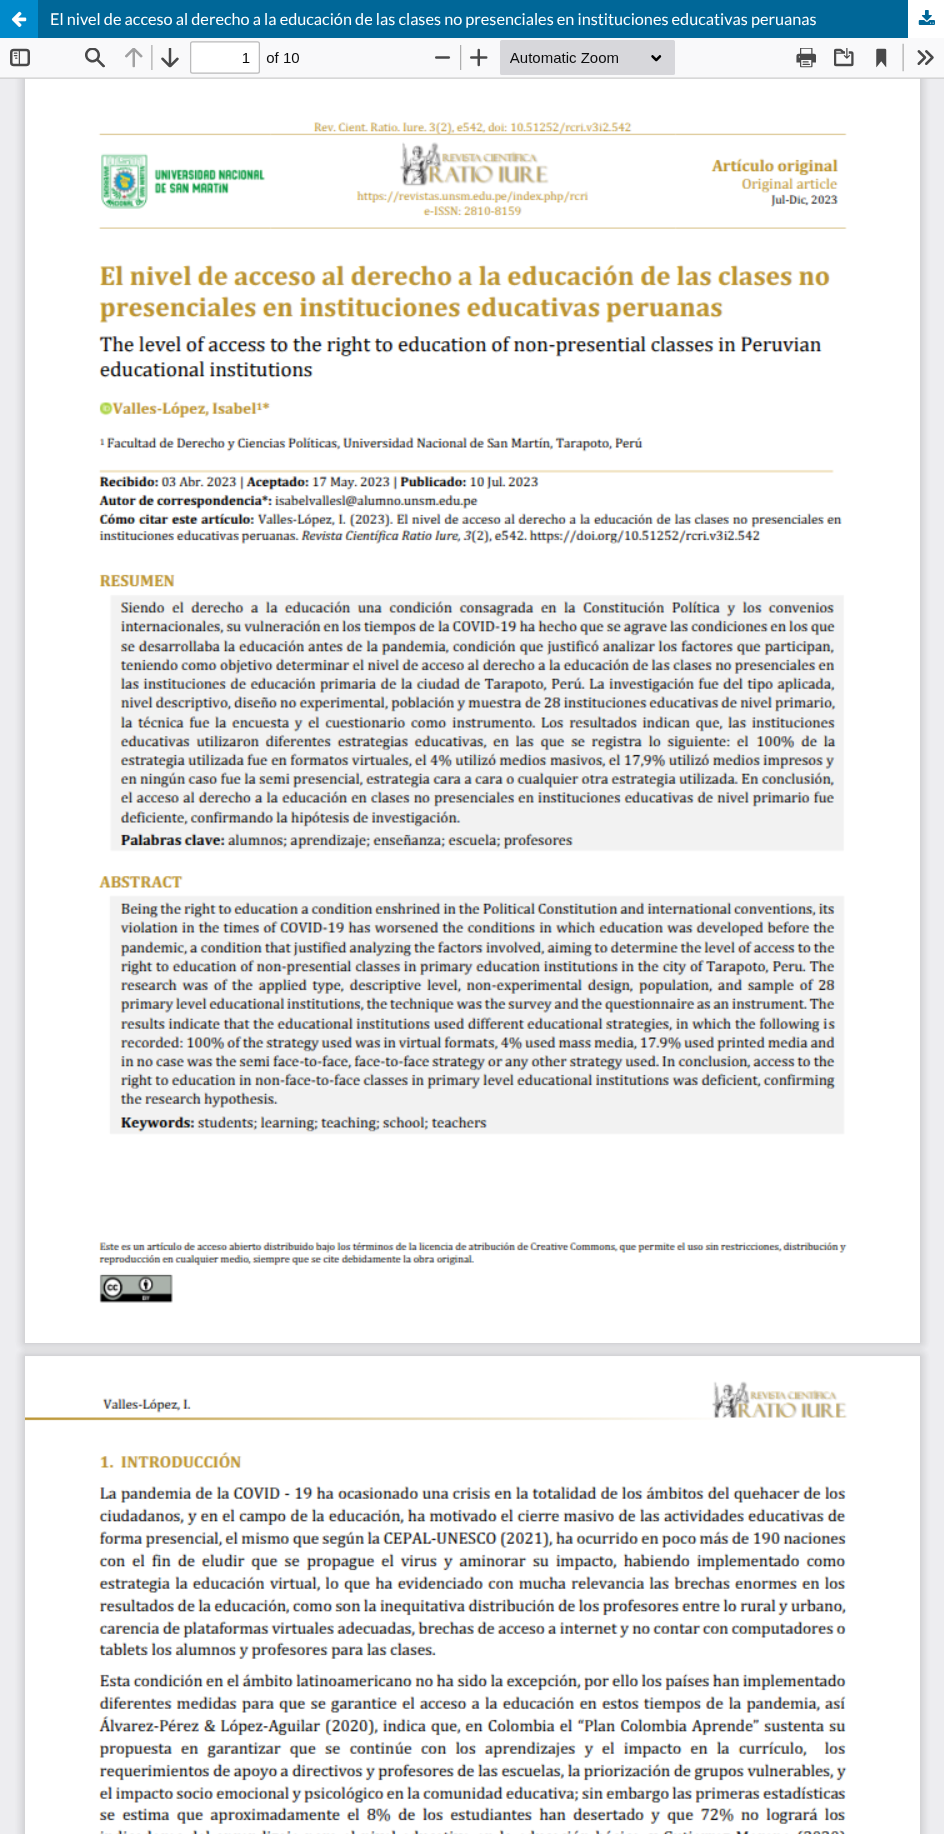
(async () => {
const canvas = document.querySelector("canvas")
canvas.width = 944
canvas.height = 1834
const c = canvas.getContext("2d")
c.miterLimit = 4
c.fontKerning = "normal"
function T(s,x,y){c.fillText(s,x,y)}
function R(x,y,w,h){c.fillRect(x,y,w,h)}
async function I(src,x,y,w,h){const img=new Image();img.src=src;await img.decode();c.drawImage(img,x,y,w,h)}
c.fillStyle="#fff"
R(0,0,944,1834)
c.fillStyle="#006798"
R(38,0,870,38)
c.fillStyle="#008acb"
R(0,0,38,38)
await I("1.png",11,11,16,16)
c.font="16.25px Lato"
c.fillStyle="#fff"
T("El nivel de acceso al derecho a la educación de las clases no presenciales en instituciones educativas peruanas",50,25)
await I("2.png",918,10,17,15)
await I("3.png",0,38,944,1796)
})()
